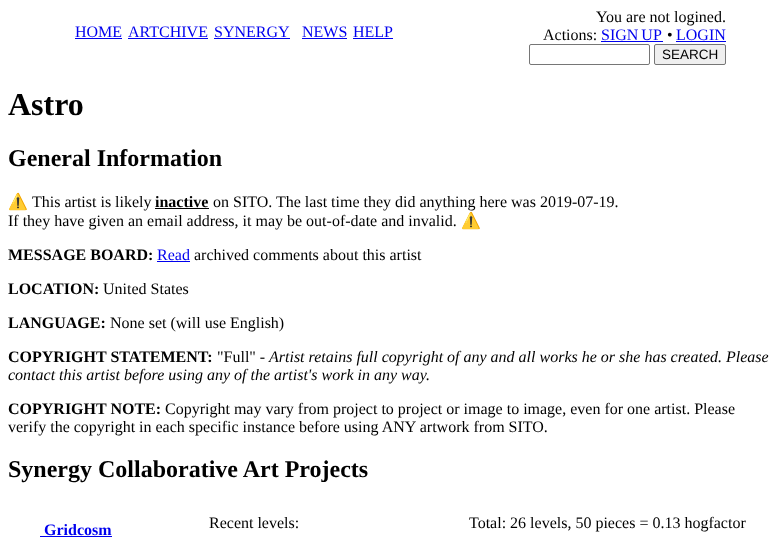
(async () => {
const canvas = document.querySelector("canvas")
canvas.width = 777
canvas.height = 539
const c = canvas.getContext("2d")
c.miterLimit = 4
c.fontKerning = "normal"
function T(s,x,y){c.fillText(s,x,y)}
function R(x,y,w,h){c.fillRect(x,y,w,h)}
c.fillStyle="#fff"
R(0,0,777,539)
c.font="16px Liberation Serif"
c.fillStyle="#00e"
T("HOME",75,37)
R(75,38,47,1)
T("ARTCHIVE",128,37)
R(128,38,80,1)
T("SYNERGY",214,37)
R(214,38,76,1)
T("NEWS",302,37)
R(302,38,45,1)
T("HELP",353,37)
R(353,38,40,1)
c.fillStyle="#000"
T("You are not logined.",596,22)
T("Actions:",543,40)
c.wordSpacing="-1px"
c.fillStyle="#00e"
T("SIGN UP",601,40)
R(601,41,62,1)
c.wordSpacing="0px"
c.fillStyle="#000"
T("•",667,40)
c.fillStyle="#00e"
T("LOGIN",676,40)
R(676,41,50,1)
c.beginPath()
c.roundRect(529.5,44.5,120,20,1.5)
c.strokeStyle="#767676"
c.stroke()
c.fillStyle="#efefef"
c.beginPath()
c.roundRect(654.5,44.5,71,20,1.5)
c.fill()
c.stroke()
c.font="13.5px Liberation Sans"
c.fillStyle="#000"
T("SEARCH",662,59)
c.font="bold 32px Liberation Serif"
T("Astro",8,115)
c.font="bold 24px Liberation Serif"
T("General Information",8,166)
c.font="16px Noto Color Emoji"
T("⚠️",8,207)
c.font="16px Liberation Serif"
T("This artist is likely",32,207)
c.font="bold 16px Liberation Serif"
T("inactive",155,207)
R(155,208,54,1)
c.font="16px Liberation Serif"
T("on SITO. The last time they did anything here was 2019-07-19.",213,207)
T("If they have given an email address, it may be out-of-date and invalid.",8,226)
c.font="16px Noto Color Emoji"
T("⚠️",461,226)
c.font="bold 16px Liberation Serif"
T("MESSAGE BOARD:",8,260)
c.font="16px Liberation Serif"
c.fillStyle="#00e"
T("Read",157,260)
R(157,261,33,1)
c.fillStyle="#000"
T("archived comments about this artist",194,260)
c.font="bold 16px Liberation Serif"
T("LOCATION:",8,294)
c.font="16px Liberation Serif"
T("United States",103,294)
c.font="bold 16px Liberation Serif"
T("LANGUAGE:",8,328)
c.font="16px Liberation Serif"
T("None set (will use English)",110,328)
c.font="bold 16px Liberation Serif"
T("COPYRIGHT STATEMENT:",8,362)
c.font="16px Liberation Serif"
T("\"Full\" -",217,362)
c.font="italic 16px Liberation Serif"
T("Artist retains full copyright of any and all works he or she has created. Please",269,362)
T("contact this artist before using any of the artist's work in any way.",8,380)
c.font="bold 16px Liberation Serif"
T("COPYRIGHT NOTE:",8,414)
c.font="16px Liberation Serif"
T("Copyright may vary from project to project or image to image, even for one artist. Please",165,414)
T("verify the copyright in each specific instance before using ANY artwork from SITO.",8,432)
c.font="bold 24px Liberation Serif"
T("Synergy Collaborative Art Projects",8,477)
c.font="bold 16px Liberation Serif"
c.fillStyle="#00e"
T("Gridcosm",44,535)
R(40,536,72,1)
c.font="16px Liberation Serif"
c.fillStyle="#000"
T("Recent levels:",209,528)
T("Total: 26 levels, 50 pieces = 0.13 hogfactor",469,528)
})()
